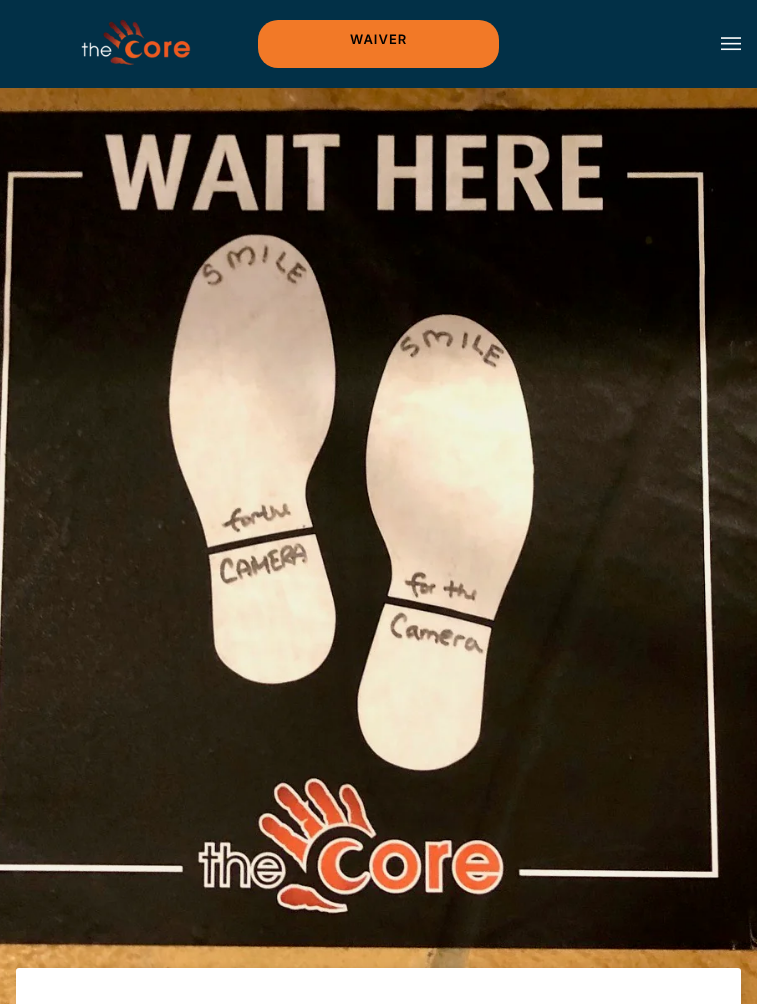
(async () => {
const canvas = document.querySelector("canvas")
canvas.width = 757
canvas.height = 1004
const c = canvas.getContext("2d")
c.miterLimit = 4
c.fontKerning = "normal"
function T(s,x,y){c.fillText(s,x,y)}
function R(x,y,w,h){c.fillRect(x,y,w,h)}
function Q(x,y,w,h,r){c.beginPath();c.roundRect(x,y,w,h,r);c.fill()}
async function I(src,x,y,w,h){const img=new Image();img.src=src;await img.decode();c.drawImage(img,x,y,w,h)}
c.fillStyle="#fff"
R(0,0,757,1004)
c.fillStyle="#023047"
R(0,0,757,88)
await I("1.png",81,19,110,46)
c.fillStyle="#f27927"
Q(258,20,241,48,20)
c.letterSpacing="1px"
c.font="600 13px Inter"
c.fillStyle="#000"
T("WAIVER",350,44)
await I("2.png",721,37,20,14)
await I("3.png",0,88,757,916)
c.fillStyle="#0000001a"
c.filter="blur(3.5px)"
c.beginPath()
c.roundRect(17,969,725,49,3)
c.fill()
c.filter="none"
c.fillStyle="#fff"
Q(16,968,725,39,3)
})()
